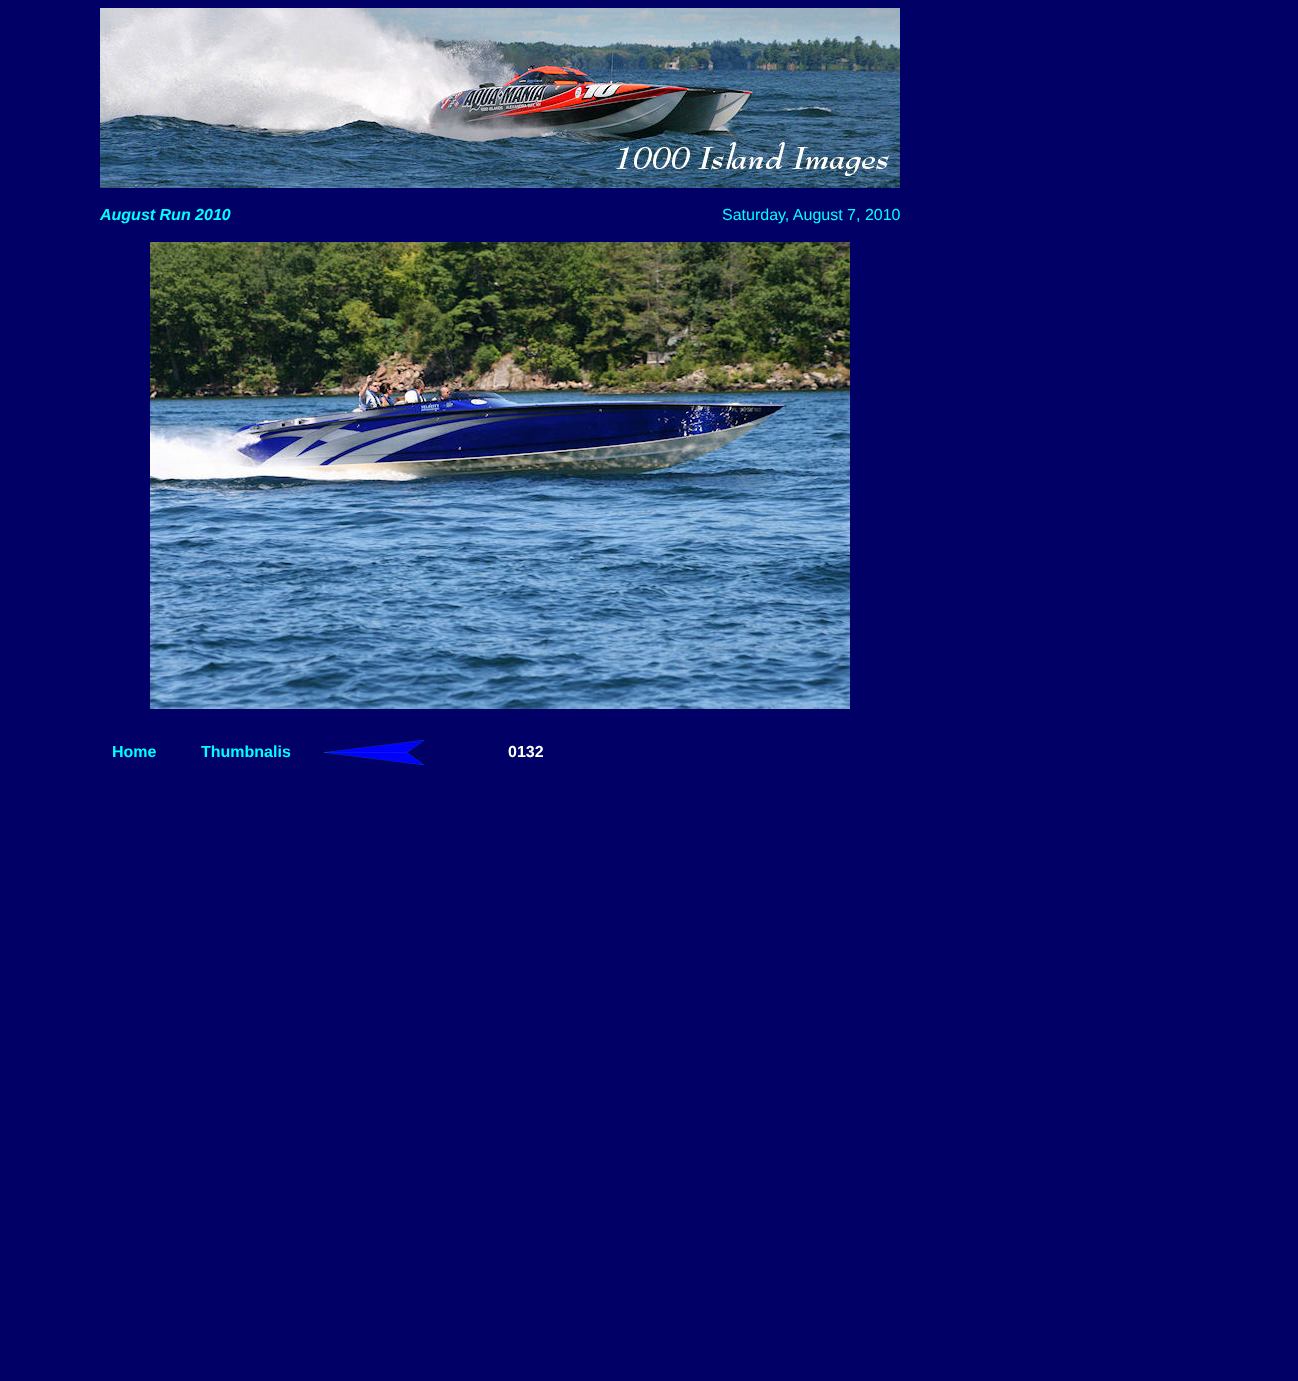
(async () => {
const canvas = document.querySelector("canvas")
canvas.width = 1298
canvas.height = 1381
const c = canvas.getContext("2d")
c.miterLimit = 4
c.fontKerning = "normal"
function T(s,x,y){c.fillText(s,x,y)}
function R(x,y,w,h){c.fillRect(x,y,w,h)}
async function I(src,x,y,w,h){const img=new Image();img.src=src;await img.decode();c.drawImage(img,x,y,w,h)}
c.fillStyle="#006"
R(0,0,1298,1381)
await I("1.png",100,8,800,180)
c.font="italic bold 16px Liberation Sans"
c.fillStyle="#0ff"
T("August Run 2010",100,220)
c.font="16px Liberation Sans"
T("Saturday, August 7, 2010",722,220)
await I("2.png",150,242,700,467)
c.font="bold 16px Liberation Sans"
T("Home",112,757)
T("Thumbnalis",201,757)
await I("3.png",324,740,100,25)
c.fillStyle="#fff"
T("0132",508,757)
})()
